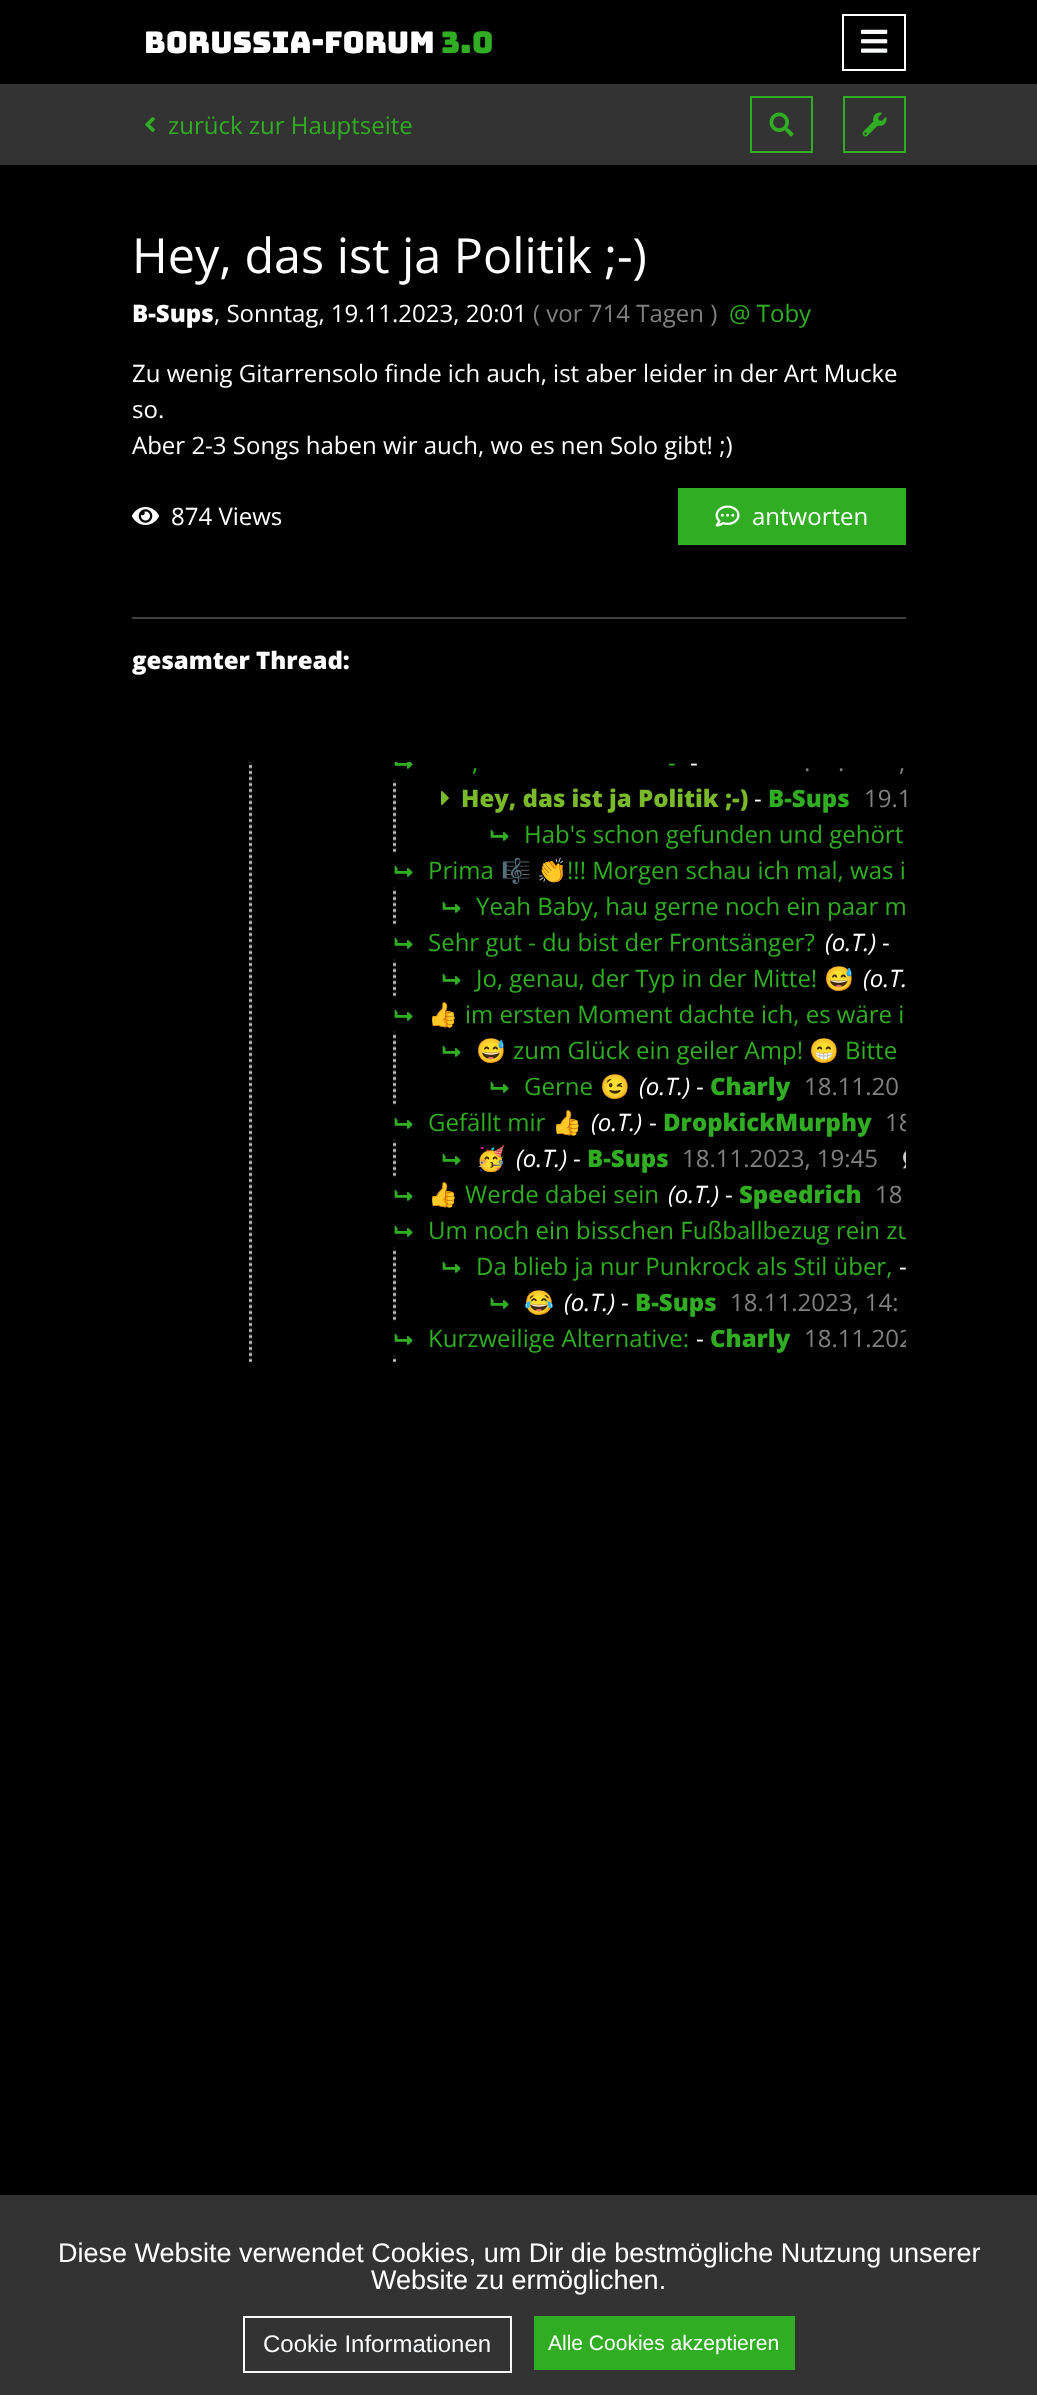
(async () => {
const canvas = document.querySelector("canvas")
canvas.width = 1037
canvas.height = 2395
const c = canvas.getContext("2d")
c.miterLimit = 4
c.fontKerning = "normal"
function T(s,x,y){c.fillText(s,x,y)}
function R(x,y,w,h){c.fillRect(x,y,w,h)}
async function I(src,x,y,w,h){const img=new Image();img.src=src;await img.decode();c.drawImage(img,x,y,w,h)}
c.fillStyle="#000"
R(0,0,1037,2395)
c.font="30px Bungee"
c.fillStyle="#fff"
T("Borussia-Forum",144,53)
c.fillStyle="#30ad23"
T("3.0",441,53)
c.strokeStyle="#fff"
c.lineWidth=2
c.strokeRect(843,15,62,55)
await I("1.png",861,29,27,24)
c.fillStyle="#333"
R(0,84,1037,81)
await I("2.png",145,117,10,15)
c.font="24px Open Sans"
c.fillStyle="#30ad23"
T("zurück zur Hauptseite",168,134)
c.strokeStyle="#30ad23"
c.strokeRect(751,97,61,55)
await I("3.png",769,112,25,25)
c.strokeRect(844,97,61,55)
await I("4.png",862,112,25,25)
c.font="48.5px Open Sans"
c.fillStyle="#fff"
T("Hey, das ist ja Politik ;-)",132,273)
c.font="800 24px Open Sans"
T("B-Sups",132,322)
c.font="24px Open Sans"
T(", Sonntag, 19.11.2023, 20:01",214,322)
c.fillStyle="#808080"
T("( vor 714 Tagen )",533,322)
c.fillStyle="#30ad23"
T("@ Toby",729,322)
c.fillStyle="#fff"
T("Zu wenig Gitarrensolo finde ich auch, ist aber leider in der Art Mucke",132,382)
T("so.",132,418)
T("Aber 2-3 Songs haben wir auch, wo es nen Solo gibt! ;)",132,454)
await I("5.png",132,507,27,18)
T("874 Views",171,525)
c.fillStyle="#30ad23"
R(678,488,228,57)
await I("6.png",715,505,25,22)
c.fillStyle="#fff"
T("antworten",752,525)
c.fillStyle="#404040"
R(132,617,774,2)
c.font="800 24px Open Sans"
c.fillStyle="#fff"
T("gesamter Thread:",132,669)
await I("7.png",249,762,3,600)
await I("8.png",394,762,19,7)
c.font="24px Open Sans"
c.fillStyle="#30ad23"
T("-",668,771)
T(",",472,771)
c.fillStyle="#fff"
T("-",690,771)
c.fillStyle="#808080"
T(".",804,771)
T(".",838,771)
T(",",899,771)
await I("9.png",393,779,3,74)
await I("10.png",441,791,8,14)
c.font="800 24px Open Sans"
c.fillStyle="#7ab92a"
T("Hey, das ist ja Politik ;-)",461,807)
c.font="24px Open Sans"
c.fillStyle="#fff"
T("-",754,807)
c.font="800 24px Open Sans"
c.fillStyle="#30ad23"
T("B-Sups",768,807)
c.font="24px Open Sans"
c.fillStyle="#808080"
T("19.1",864,807)
await I("11.png",490,829,19,12)
c.fillStyle="#30ad23"
T("Hab's schon gefunden und gehört",524,843)
await I("11.png",394,865,19,12)
T("Prima",428,879)
c.font="24px Noto Color Emoji"
T("🎼",501,879)
T("👏",537,879)
c.font="24px Open Sans"
T("!!! Morgen schau ich mal, was i",567,879)
await I("12.png",393,887,3,38)
await I("11.png",442,901,19,12)
T("Yeah Baby, hau gerne noch ein paar m",476,915)
await I("11.png",394,937,19,12)
T("Sehr gut - du bist der Frontsänger?",428,951)
c.font="italic 24px Open Sans"
c.fillStyle="#fff"
T("(o.T.)",825,951)
c.font="24px Open Sans"
T("-",882,951)
await I("13.png",393,959,3,38)
await I("11.png",442,973,19,12)
c.fillStyle="#30ad23"
T("Jo, genau, der Typ in der Mitte!",476,987)
c.font="24px Noto Color Emoji"
T("😅",824,987)
c.font="italic 24px Open Sans"
c.fillStyle="#fff"
T("(o.T.",863,987)
await I("11.png",394,1009,19,12)
c.font="24px Noto Color Emoji"
c.fillStyle="#30ad23"
T("👍",428,1023)
c.font="24px Open Sans"
T("im ersten Moment dachte ich, es wäre i",465,1023)
await I("14.png",393,1031,3,74)
await I("11.png",442,1045,19,12)
c.font="24px Noto Color Emoji"
T("😅",476,1059)
c.font="24px Open Sans"
T("zum Glück ein geiler Amp!",513,1059)
c.font="24px Noto Color Emoji"
T("😁",809,1059)
c.font="24px Open Sans"
T("Bitte",845,1059)
await I("11.png",490,1081,19,12)
T("Gerne",524,1095)
c.font="24px Noto Color Emoji"
T("😉",600,1095)
c.font="italic 24px Open Sans"
c.fillStyle="#fff"
T("(o.T.)",639,1095)
c.font="24px Open Sans"
T("-",696,1095)
c.font="800 24px Open Sans"
c.fillStyle="#30ad23"
T("Charly",710,1095)
c.font="24px Open Sans"
c.fillStyle="#808080"
T("18.11.20",804,1095)
await I("11.png",394,1117,19,12)
c.fillStyle="#30ad23"
T("Gefällt mir",428,1131)
c.font="24px Noto Color Emoji"
T("👍",552,1131)
c.font="italic 24px Open Sans"
c.fillStyle="#fff"
T("(o.T.)",591,1131)
c.font="24px Open Sans"
T("-",649,1131)
c.font="800 24px Open Sans"
c.fillStyle="#30ad23"
T("DropkickMurphy",663,1131)
c.save()
c.beginPath()
c.rect(132,762,774,600)
c.clip()
c.font="24px Open Sans"
c.fillStyle="#808080"
T("18",885,1131)
c.restore()
await I("15.png",393,1139,3,38)
await I("11.png",442,1153,19,12)
c.font="24px Noto Color Emoji"
T("🥳",476,1167)
c.font="italic 24px Open Sans"
c.fillStyle="#fff"
T("(o.T.)",516,1167)
c.font="24px Open Sans"
T("-",573,1167)
c.font="800 24px Open Sans"
c.fillStyle="#30ad23"
T("B-Sups",587,1167)
c.font="24px Open Sans"
c.fillStyle="#808080"
T("18.11.2023, 19:45",682,1167)
await I("16.png",903,1151,3,18)
await I("11.png",394,1189,19,12)
c.font="24px Noto Color Emoji"
c.fillStyle="#30ad23"
T("👍",428,1203)
c.font="24px Open Sans"
T("Werde dabei sein",465,1203)
c.font="italic 24px Open Sans"
c.fillStyle="#fff"
T("(o.T.)",668,1203)
c.font="24px Open Sans"
T("-",725,1203)
c.font="800 24px Open Sans"
c.fillStyle="#30ad23"
T("Speedrich",739,1203)
c.font="24px Open Sans"
c.fillStyle="#808080"
T("18",875,1203)
await I("11.png",394,1225,19,12)
c.save()
c.beginPath()
c.rect(132,762,774,600)
c.clip()
c.fillStyle="#30ad23"
T("Um noch ein bisschen Fußballbezug rein zu",428,1239)
c.restore()
await I("17.png",393,1247,3,74)
await I("11.png",442,1261,19,12)
c.fillStyle="#30ad23"
T("Da blieb ja nur Punkrock als Stil über,",476,1275)
c.fillStyle="#fff"
T("-",899,1275)
await I("11.png",490,1297,19,12)
c.font="24px Noto Color Emoji"
c.fillStyle="#30ad23"
T("😂",524,1311)
c.font="italic 24px Open Sans"
c.fillStyle="#fff"
T("(o.T.)",564,1311)
c.font="24px Open Sans"
T("-",621,1311)
c.font="800 24px Open Sans"
c.fillStyle="#30ad23"
T("B-Sups",635,1311)
c.font="24px Open Sans"
c.fillStyle="#808080"
T("18.11.2023, 14:",730,1311)
await I("11.png",394,1333,19,12)
c.fillStyle="#30ad23"
T("Kurzweilige Alternative:",428,1347)
c.fillStyle="#fff"
T("-",696,1347)
c.font="800 24px Open Sans"
c.fillStyle="#30ad23"
T("Charly",710,1347)
c.save()
c.beginPath()
c.rect(132,762,774,600)
c.clip()
c.font="24px Open Sans"
c.fillStyle="#808080"
T("18.11.202",804,1347)
c.restore()
await I("18.png",393,1355,3,7)
c.fillStyle="#333"
R(0,2195,1037,200)
c.font="27px Liberation Sans"
c.fillStyle="#fff"
T("Diese Website verwendet Cookies, um Dir die bestmögliche Nutzung unserer",58,2262)
T("Website zu ermöglichen.",371,2289)
c.strokeStyle="#f8f9fa"
c.strokeRect(244,2317,267,55)
c.font="24px Liberation Sans"
c.fillStyle="#f8f9fa"
T("Cookie Informationen",263,2352)
c.fillStyle="#30ad23"
R(534,2316,261,54)
c.font="21px Liberation Sans"
c.fillStyle="#fff"
T("Alle Cookies akzeptieren",548,2350)
})()
